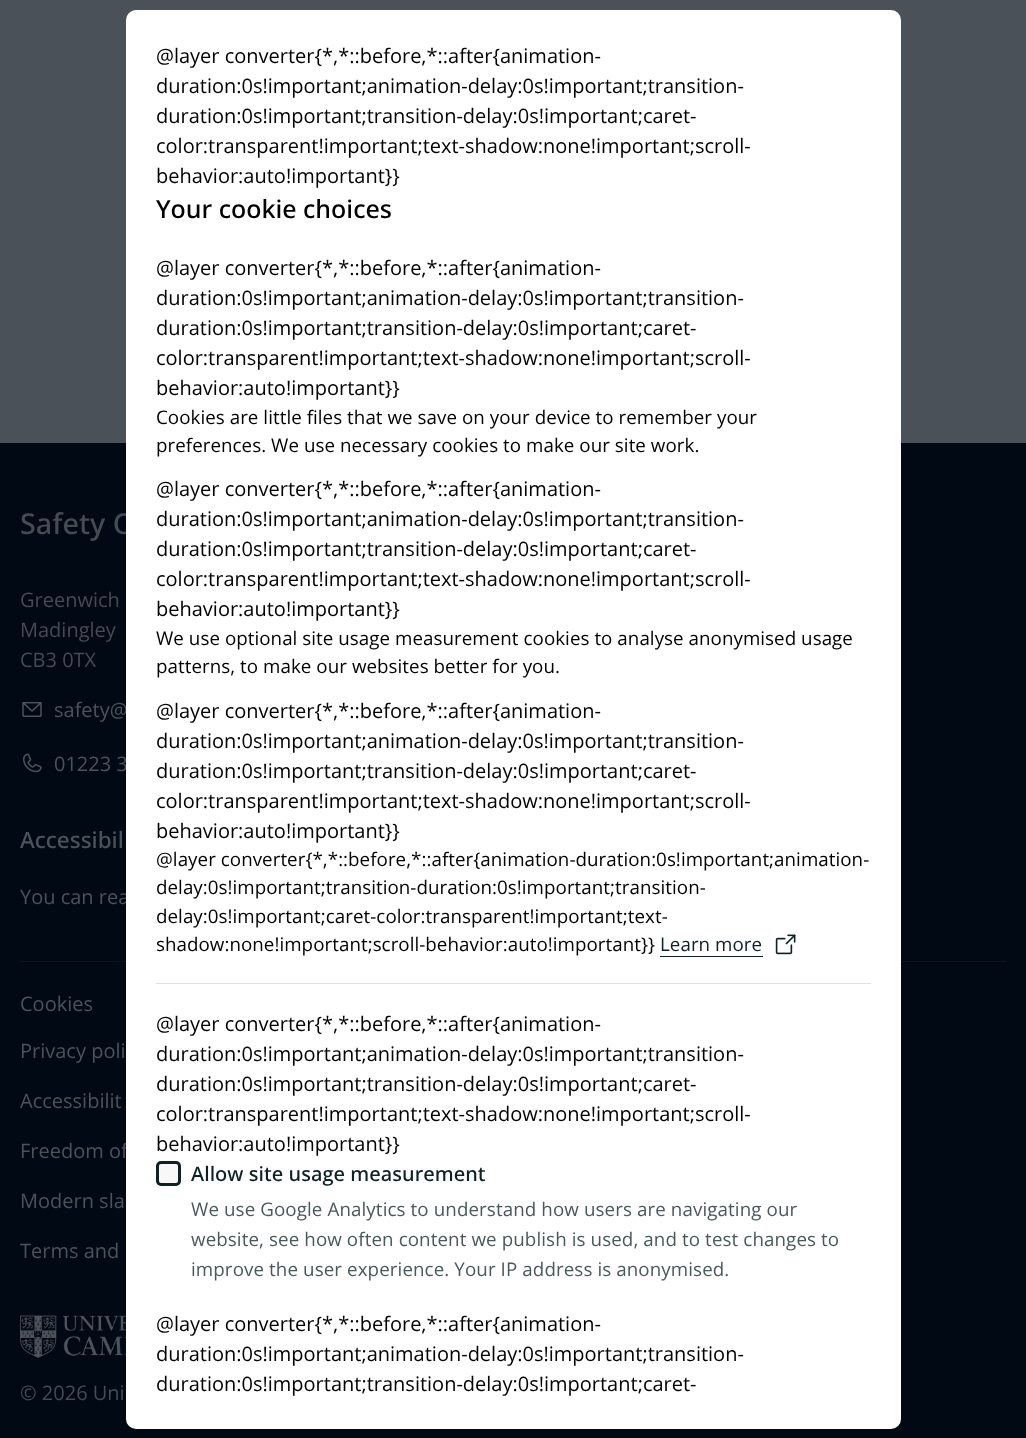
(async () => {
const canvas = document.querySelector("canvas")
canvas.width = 1026
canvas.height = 1438
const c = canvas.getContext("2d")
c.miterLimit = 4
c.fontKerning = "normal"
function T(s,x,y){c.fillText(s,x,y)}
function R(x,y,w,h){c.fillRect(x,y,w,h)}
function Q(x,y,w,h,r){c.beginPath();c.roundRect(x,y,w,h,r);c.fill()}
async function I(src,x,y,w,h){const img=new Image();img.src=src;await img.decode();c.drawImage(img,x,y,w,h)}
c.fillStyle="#4b5158"
R(0,0,1026,1438)
c.fillStyle="#010a14"
R(0,443,1026,995)
c.font="500 28.75px Open Sans"
c.fillStyle="#444b52"
T("Safety O",20,534)
c.font="20px Open Sans"
T("Greenwich",20,607)
T("Madingley",20,637)
T("CB3 0TX",20,667)
await I("1.png",22,702,20,15)
c.fillStyle="#4b535a"
T("safety@",54,717)
await I("2.png",23,753,19,20)
T("01223 3",54,771)
c.font="500 22.5px Open Sans"
T("Accessibil",20,848)
c.font="20px Open Sans"
T("You can rea",20,904)
c.fillStyle="#0c151f"
R(20,961,986,1)
c.fillStyle="#4b535a"
T("Cookies",20,1011)
T("Privacy poli",20,1058)
T("Accessibilit",20,1108)
T("Freedom of",20,1158)
T("Modern sla",20,1208)
T("Terms and",20,1258)
await I("3.png",20,1315,106,43)
c.fillStyle="#444b52"
T("© 2026 Uni",20,1400)
c.fillStyle="#fff"
Q(126,10,775,1419,10)
c.fillStyle="#000"
T("@layer converter{*,*::before,*::after{animation-",156,63)
T("duration:0s!important;animation-delay:0s!important;transition-",156,93)
T("duration:0s!important;transition-delay:0s!important;caret-",156,123)
T("color:transparent!important;text-shadow:none!important;scroll-",156,153)
T("behavior:auto!important}}",156,183)
c.font="500 25px Open Sans"
T("Your cookie choices",156,218)
c.font="20px Open Sans"
T("@layer converter{*,*::before,*::after{animation-",156,275)
T("duration:0s!important;animation-delay:0s!important;transition-",156,305)
T("duration:0s!important;transition-delay:0s!important;caret-",156,335)
T("color:transparent!important;text-shadow:none!important;scroll-",156,365)
T("behavior:auto!important}}",156,395)
c.letterSpacing="0.05px"
c.font="18.75px Open Sans"
T("Cookies are little files that we save on your device to remember your",156,424)
T("preferences. We use necessary cookies to make our site work.",156,452)
c.letterSpacing="0px"
c.font="20px Open Sans"
T("@layer converter{*,*::before,*::after{animation-",156,496)
T("duration:0s!important;animation-delay:0s!important;transition-",156,526)
T("duration:0s!important;transition-delay:0s!important;caret-",156,556)
T("color:transparent!important;text-shadow:none!important;scroll-",156,586)
T("behavior:auto!important}}",156,616)
c.letterSpacing="0.05px"
c.font="18.75px Open Sans"
T("We use optional site usage measurement cookies to analyse anonymised usage",156,645)
T("patterns, to make our websites better for you.",156,673)
c.letterSpacing="0px"
c.font="20px Open Sans"
T("@layer converter{*,*::before,*::after{animation-",156,718)
T("duration:0s!important;animation-delay:0s!important;transition-",156,748)
T("duration:0s!important;transition-delay:0s!important;caret-",156,778)
T("color:transparent!important;text-shadow:none!important;scroll-",156,808)
T("behavior:auto!important}}",156,838)
c.letterSpacing="0.05px"
c.font="18.75px Open Sans"
T("@layer converter{*,*::before,*::after{animation-duration:0s!important;animation-",156,866)
T("delay:0s!important;transition-duration:0s!important;transition-",156,894)
T("delay:0s!important;caret-color:transparent!important;text-",156,923)
T("shadow:none!important;scroll-behavior:auto!important}}",156,951)
c.fillStyle="#0f2125"
T("Learn more",660,951)
R(660,956,103,1)
await I("4.png",775,934,21,21)
c.fillStyle="#d9e3e5"
R(156,983,715,1)
c.letterSpacing="0px"
c.font="20px Open Sans"
c.fillStyle="#000"
T("@layer converter{*,*::before,*::after{animation-",156,1031)
T("duration:0s!important;animation-delay:0s!important;transition-",156,1061)
T("duration:0s!important;transition-delay:0s!important;caret-",156,1091)
T("color:transparent!important;text-shadow:none!important;scroll-",156,1121)
T("behavior:auto!important}}",156,1151)
c.fillStyle="#f7f8f7"
c.beginPath()
c.roundRect(157.5,1162.5,22,22,3.5)
c.fill()
c.strokeStyle="#0f2125"
c.lineWidth=3
c.stroke()
c.letterSpacing="0.05px"
c.font="500 20px Open Sans"
c.fillStyle="#0f2125"
T("Allow site usage measurement",191,1181)
c.letterSpacing="0.1px"
c.font="18.75px Open Sans"
c.fillStyle="#4b595c"
T("We use Google Analytics to understand how users are navigating our",191,1216)
T("website, see how often content we publish is used, and to test changes to",191,1246)
T("improve the user experience. Your IP address is anonymised.",191,1276)
c.letterSpacing="0px"
c.font="20px Open Sans"
c.fillStyle="#000"
T("@layer converter{*,*::before,*::after{animation-",156,1331)
T("duration:0s!important;animation-delay:0s!important;transition-",156,1361)
T("duration:0s!important;transition-delay:0s!important;caret-",156,1391)
})()
